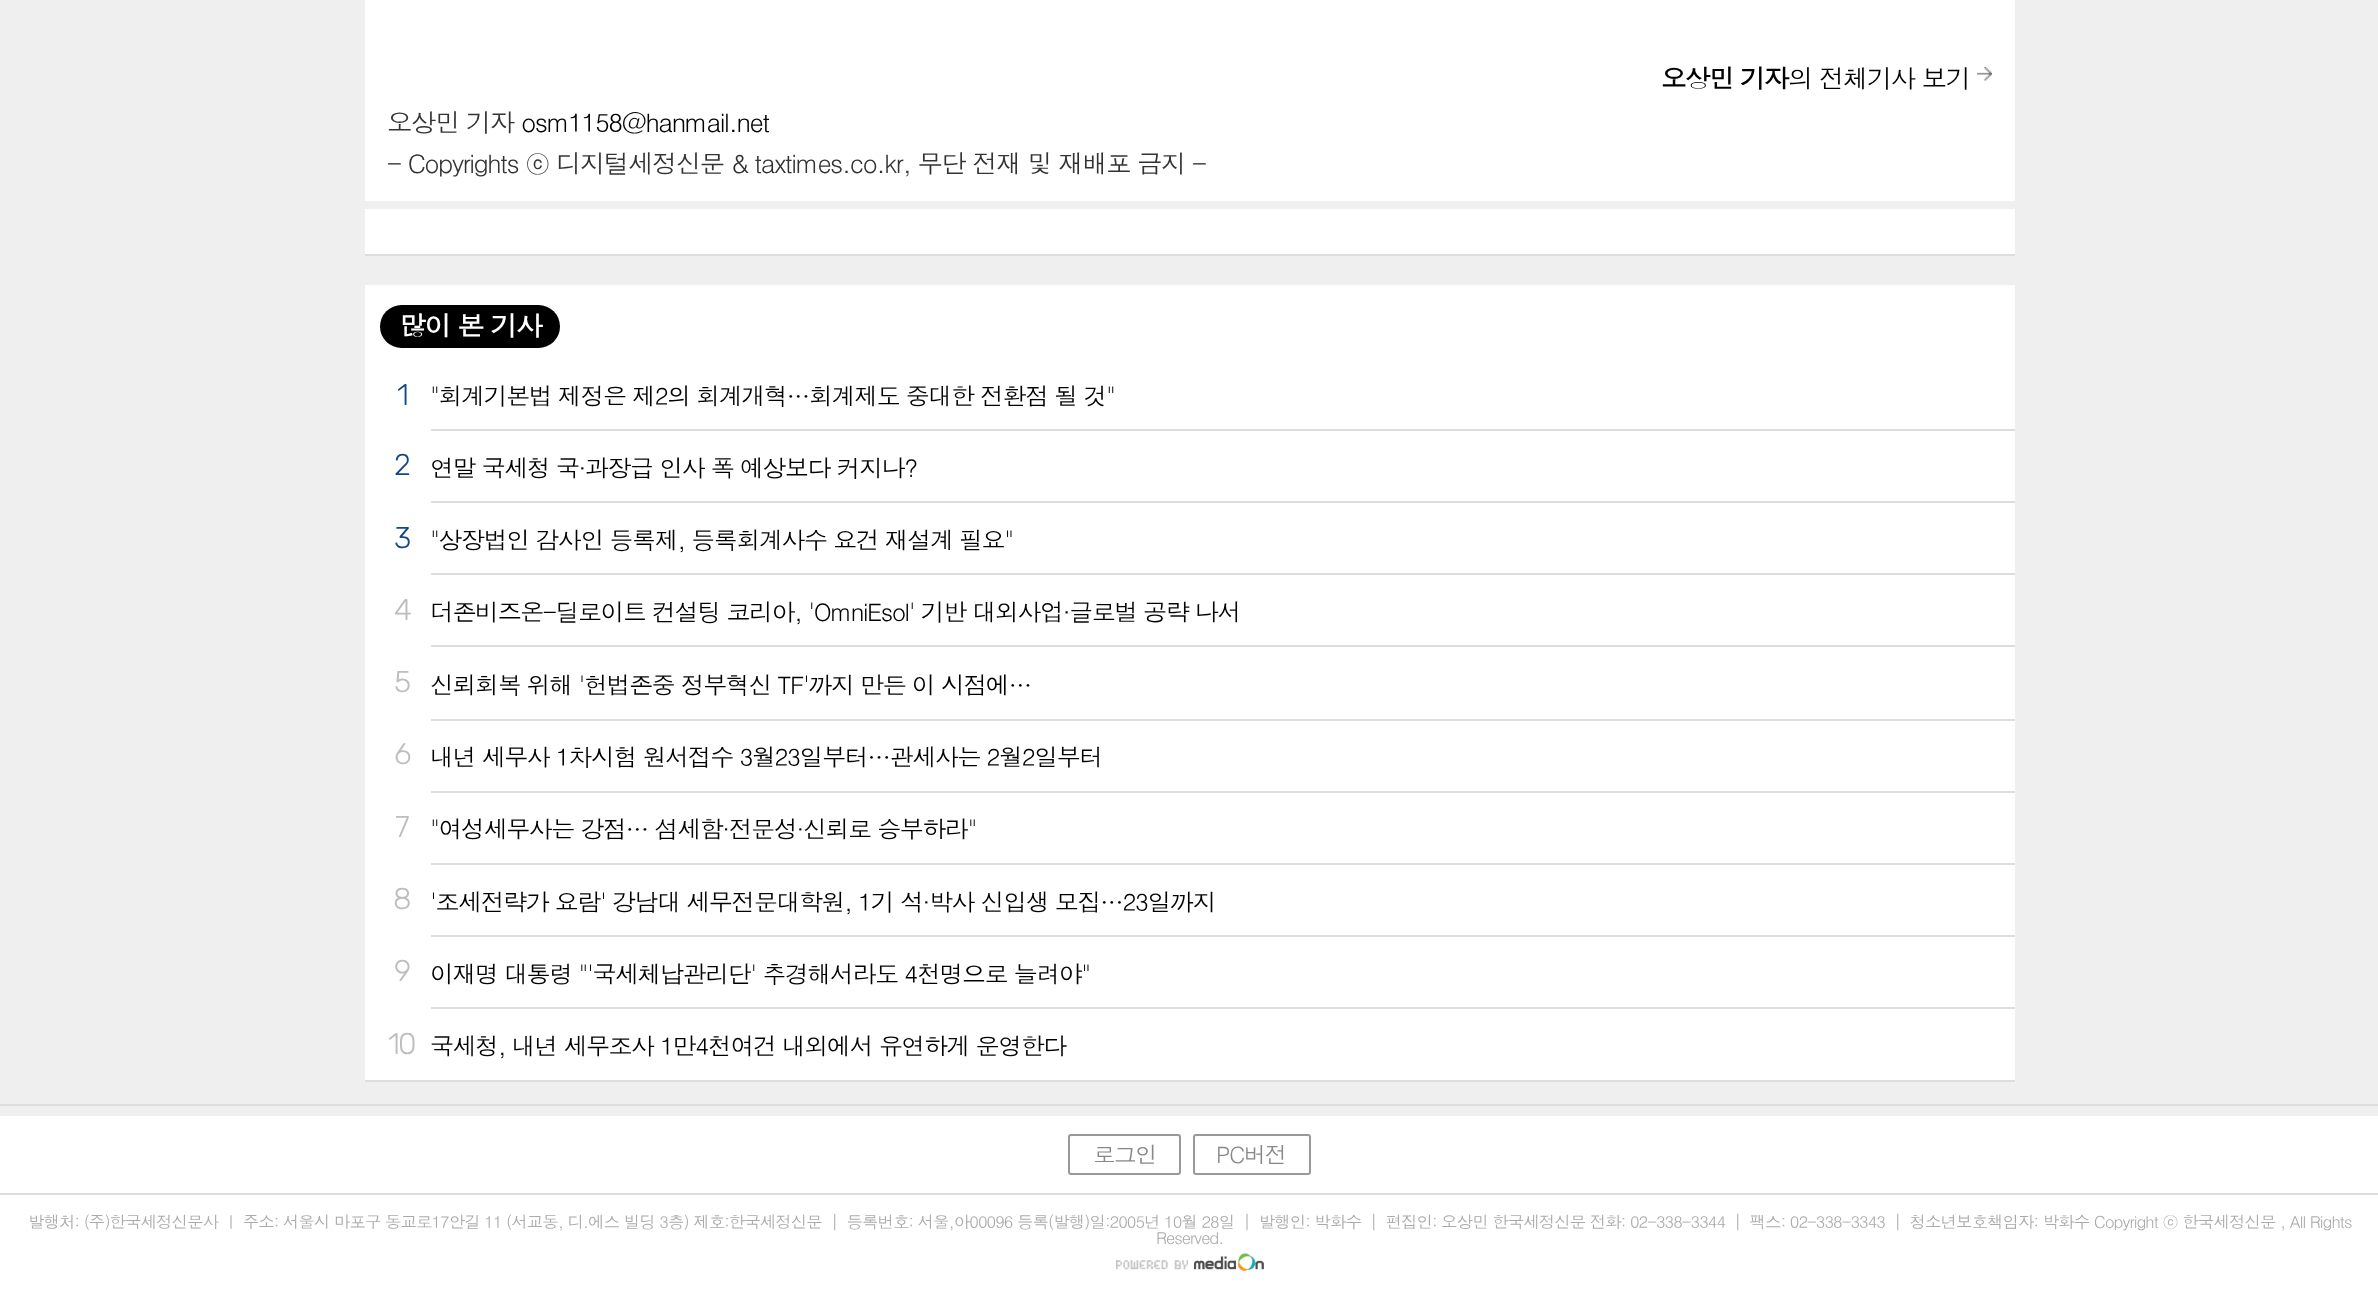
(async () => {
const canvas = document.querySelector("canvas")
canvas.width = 2378
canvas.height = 1291
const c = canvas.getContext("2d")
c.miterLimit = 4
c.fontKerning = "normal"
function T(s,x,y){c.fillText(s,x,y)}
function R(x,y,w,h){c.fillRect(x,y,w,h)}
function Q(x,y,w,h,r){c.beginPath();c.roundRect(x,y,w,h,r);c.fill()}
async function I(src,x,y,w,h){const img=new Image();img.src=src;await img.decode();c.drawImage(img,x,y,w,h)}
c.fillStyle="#efefef"
R(0,0,2378,1291)
c.fillStyle="#fff"
R(365,0,1650,201)
c.letterSpacing="-1.53px"
c.font="bold 25.5px Dotum"
c.fillStyle="#000"
T("오상민 기자",1661,88)
c.font="25.5px Dotum"
T("의 전체기사 보기",1788,88)
await I("1.png",1977,67,15,14)
c.fillStyle="#333"
T("오상민 기자",387,132)
c.fillStyle="#000"
T("osm1158@hanmail.net",521,132)
c.fillStyle="#333"
T("- Copyrights ⓒ 디지털세정신문 & taxtimes.co.kr, 무단 전재 및 재배포 금지 -",387,173)
c.fillStyle="#fff"
R(365,209,1650,45)
c.fillStyle="#ddd"
R(365,254,1650,2)
R(365,1080,1650,2)
c.fillStyle="#fff"
R(365,285,1650,795)
c.fillStyle="#000"
Q(380,305,180,43,21.5)
c.letterSpacing="-1.5px"
c.font="bold 27px Dotum"
c.fillStyle="#fff"
T("많이 본 기사",399,336)
c.letterSpacing="-2px"
c.font="300 30px Rubik"
c.fillStyle="#124788"
T("1",397,405)
c.letterSpacing="-1.45px"
c.font="24px Dotum"
c.fillStyle="#000"
T("\"회계기본법 제정은 제2의 회계개혁…회계제도 중대한 전환점 될 것\"",430,405)
c.fillStyle="#ddd"
R(431,429,1584,2)
c.letterSpacing="-2px"
c.font="300 30px Rubik"
c.fillStyle="#124788"
T("2",394,475)
c.letterSpacing="-1.45px"
c.font="24px Dotum"
c.fillStyle="#000"
T("연말 국세청 국·과장급 인사 폭 예상보다 커지나?",430,477)
c.fillStyle="#ddd"
R(431,501,1584,2)
c.letterSpacing="-2px"
c.font="300 30px Rubik"
c.fillStyle="#124788"
T("3",394,548)
c.letterSpacing="-1.45px"
c.font="24px Dotum"
c.fillStyle="#000"
T("\"상장법인 감사인 등록제, 등록회계사수 요건 재설계 필요\"",430,549)
c.fillStyle="#ddd"
R(431,573,1584,2)
c.letterSpacing="-2px"
c.font="300 30px Rubik"
c.fillStyle="#bdbdbd"
T("4",394,620)
c.letterSpacing="-1.45px"
c.font="24px Dotum"
c.fillStyle="#000"
T("더존비즈온-딜로이트 컨설팅 코리아, 'OmniEsol' 기반 대외사업·글로벌 공략 나서",430,621)
c.fillStyle="#ddd"
R(431,645,1584,2)
c.letterSpacing="-2px"
c.font="300 30px Rubik"
c.fillStyle="#bdbdbd"
T("5",394,692)
c.letterSpacing="-1.45px"
c.font="24px Dotum"
c.fillStyle="#000"
T("신뢰회복 위해 '헌법존중 정부혁신 TF'까지 만든 이 시점에…",430,694)
c.fillStyle="#ddd"
R(431,719,1584,2)
c.letterSpacing="-2px"
c.font="300 30px Rubik"
c.fillStyle="#bdbdbd"
T("6",394,764)
c.letterSpacing="-1.45px"
c.font="24px Dotum"
c.fillStyle="#000"
T("내년 세무사 1차시험 원서접수 3월23일부터…관세사는 2월2일부터",430,766)
c.fillStyle="#ddd"
R(431,791,1584,2)
c.letterSpacing="-2px"
c.font="300 30px Rubik"
c.fillStyle="#bdbdbd"
T("7",395,837)
c.letterSpacing="-1.45px"
c.font="24px Dotum"
c.fillStyle="#000"
T("\"여성세무사는 강점… 섬세함·전문성·신뢰로 승부하라\"",430,838)
c.fillStyle="#ddd"
R(431,863,1584,2)
c.letterSpacing="-2px"
c.font="300 30px Rubik"
c.fillStyle="#bdbdbd"
T("8",393,909)
c.letterSpacing="-1.45px"
c.font="24px Dotum"
c.fillStyle="#000"
T("'조세전략가 요람' 강남대 세무전문대학원, 1기 석·박사 신입생 모집…23일까지",430,911)
c.fillStyle="#ddd"
R(431,935,1584,2)
c.letterSpacing="-2px"
c.font="300 30px Rubik"
c.fillStyle="#bdbdbd"
T("9",394,981)
c.letterSpacing="-1.45px"
c.font="24px Dotum"
c.fillStyle="#000"
T("이재명 대통령 \"'국세체납관리단' 추경해서라도 4천명으로 늘려야\"",430,983)
c.fillStyle="#ddd"
R(431,1007,1584,2)
c.letterSpacing="-2px"
c.font="300 30px Rubik"
c.fillStyle="#bdbdbd"
T("10",388,1054)
c.letterSpacing="-1.45px"
c.font="24px Dotum"
c.fillStyle="#000"
T("국세청, 내년 세무조사 1만4천여건 내외에서 유연하게 운영한다",430,1055)
c.fillStyle="#fff"
R(0,1116,2378,175)
c.fillStyle="#ddd"
R(0,1104,2378,2)
R(0,1193,2378,2)
c.beginPath()
c.roundRect(1069,1135,111,39,2)
c.strokeStyle="#999"
c.lineWidth=2
c.stroke()
c.letterSpacing="-1.5px"
c.font="22.5px Dotum"
c.fillStyle="#888"
T("로그인",1093,1163)
c.beginPath()
c.roundRect(1194,1135,116,39,2)
c.stroke()
T("PC버전",1216,1163)
c.letterSpacing="-0.99px"
c.font="16.5px Dotum"
c.fillStyle="#aaa"
T("발행처: (주)한국세정신문사 ㅣ 주소: 서울시 마포구 동교로17안길 11 (서교동, 디.에스 빌딩 3층) 제호:한국세정신문 │ 등록번호: 서울,아00096 등록(발행)일:2005년 10월 28일 │ 발행인: 박화수 │ 편집인: 오상민 한국세정신문 전화: 02-338-3344 │ 팩스: 02-338-3343 │ 청소년보호책임자: 박화수 Copyright ⓒ 한국세정신문 , All Rights",28,1228)
T("Reserved.",1156,1244)
await I("2.png",1116,1253,148,18)
})()
